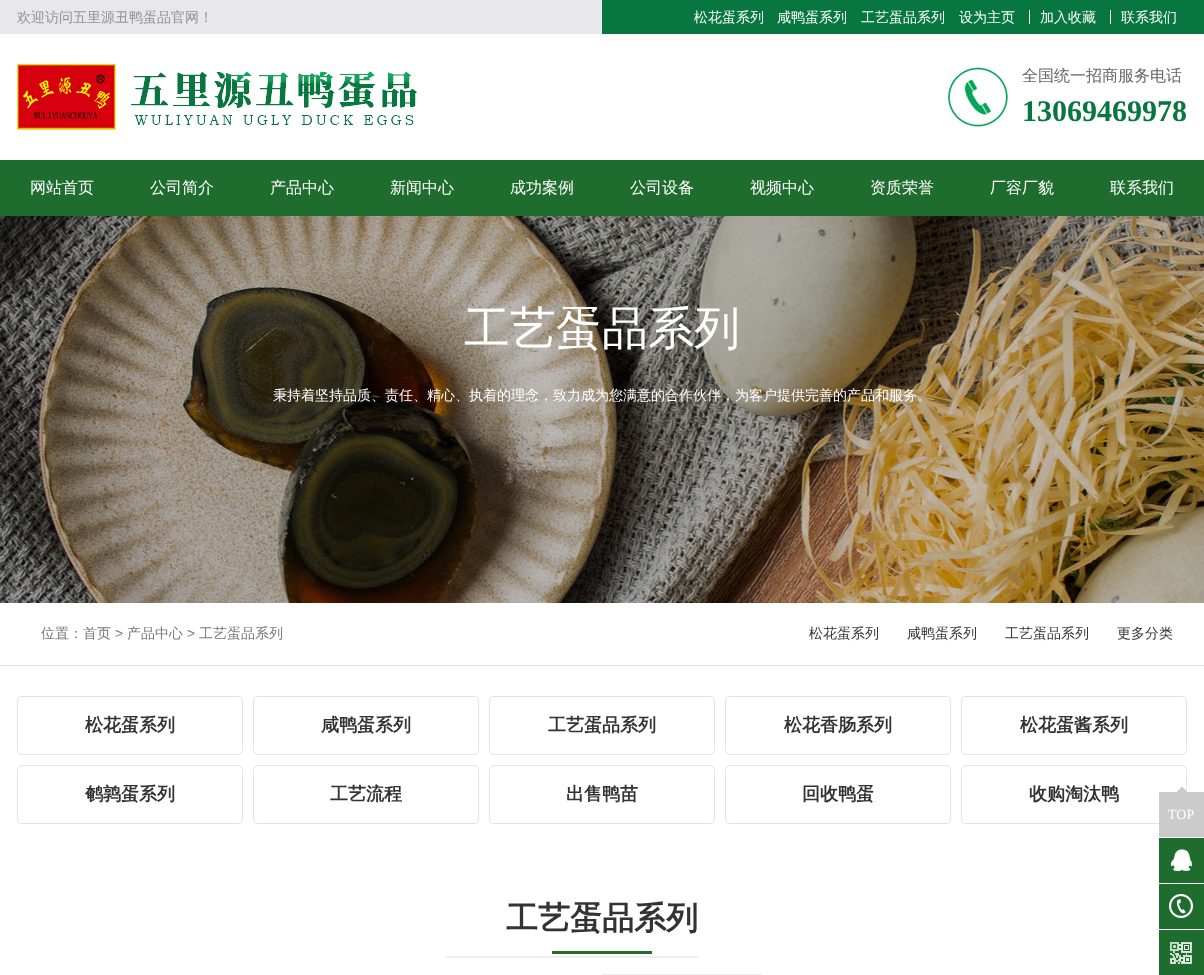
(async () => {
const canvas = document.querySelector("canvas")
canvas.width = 1204
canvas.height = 975
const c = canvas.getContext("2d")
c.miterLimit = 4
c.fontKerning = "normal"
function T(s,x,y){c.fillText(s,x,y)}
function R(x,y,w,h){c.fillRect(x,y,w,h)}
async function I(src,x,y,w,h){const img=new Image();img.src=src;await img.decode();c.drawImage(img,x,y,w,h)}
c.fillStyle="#fff"
R(0,0,1204,975)
c.fillStyle="#e8e7ec"
R(0,0,602,34)
c.fillStyle="#07773f"
R(602,0,602,34)
c.font="500 14px WenQuanYi Zen Hei"
c.fillStyle="#929192"
T("欢迎访问五里源丑鸭蛋品官网！",17,22)
c.fillStyle="#fff"
T("松花蛋系列",694,22)
T("咸鸭蛋系列",777,22)
T("工艺蛋品系列",861,22)
T("设为主页",959,22)
R(1029,10,1,14)
T("加入收藏",1040,22)
R(1110,10,1,14)
T("联系我们",1121,22)
await I("1.png",17,64,400,66)
await I("2.png",948,67,60,60)
c.font="500 16px WenQuanYi Zen Hei"
c.fillStyle="#666"
T("全国统一招商服务电话",1022,81)
c.font="bold 30px Liberation Serif"
c.fillStyle="#07773f"
T("13069469978",1022,121)
c.fillStyle="#1e6d2f"
R(0,160,1204,56)
c.font="500 16px WenQuanYi Zen Hei"
c.fillStyle="#fff"
T("网站首页",30,193)
T("公司简介",150,193)
T("产品中心",270,193)
T("新闻中心",390,193)
T("成功案例",510,193)
T("公司设备",630,193)
T("视频中心",750,193)
T("资质荣誉",870,193)
T("厂容厂貌",990,193)
T("联系我们",1110,193)
await I("3.png",0,216,1204,387)
c.font="500 46px WenQuanYi Zen Hei"
T("工艺蛋品系列",464,344)
c.font="500 14px WenQuanYi Zen Hei"
T("秉持着坚持品质、责任、精心、执着的理念，致力成为您满意的合作伙伴，为客户提供完善的产品和服务。",273,400)
c.fillStyle="#e0dfdf"
R(0,665,1204,1)
c.fillStyle="#777"
T("位置：首页",41,638)
c.font="14px Liberation Sans"
T(">",115,638)
c.font="500 14px WenQuanYi Zen Hei"
T("产品中心",127,638)
c.font="14px Liberation Sans"
T(">",187,638)
c.font="500 14px WenQuanYi Zen Hei"
T("工艺蛋品系列",199,638)
c.fillStyle="#333"
T("松花蛋系列",809,638)
T("咸鸭蛋系列",907,638)
T("工艺蛋品系列",1005,638)
T("更多分类",1117,638)
c.beginPath()
c.roundRect(17.5,696.5,225,58,4.5)
c.strokeStyle="#e4e1e1"
c.stroke()
c.font="bold 18px WenQuanYi Zen Hei"
T("松花蛋系列",85,731)
c.beginPath()
c.roundRect(253.5,696.5,225,58,4.5)
c.stroke()
T("咸鸭蛋系列",321,731)
c.beginPath()
c.roundRect(489.5,696.5,225,58,4.5)
c.stroke()
T("工艺蛋品系列",548,731)
c.beginPath()
c.roundRect(725.5,696.5,225,58,4.5)
c.stroke()
T("松花香肠系列",784,731)
c.beginPath()
c.roundRect(961.5,696.5,225,58,4.5)
c.stroke()
T("松花蛋酱系列",1020,731)
c.beginPath()
c.roundRect(17.5,765.5,225,58,4.5)
c.stroke()
T("鹌鹑蛋系列",85,800)
c.beginPath()
c.roundRect(253.5,765.5,225,58,4.5)
c.stroke()
T("工艺流程",330,800)
c.beginPath()
c.roundRect(489.5,765.5,225,58,4.5)
c.stroke()
T("出售鸭苗",566,800)
c.beginPath()
c.roundRect(725.5,765.5,225,58,4.5)
c.stroke()
T("回收鸭蛋",802,800)
c.beginPath()
c.roundRect(961.5,765.5,225,58,4.5)
c.stroke()
T("收购淘汰鸭",1029,800)
c.fillStyle="#cbcbcb"
R(1159,792,45,45)
await I("4.png",1177,787,10,5)
c.font="14px Liberation Serif"
c.fillStyle="#fff"
T("TOP",1168,819)
c.fillStyle="#1e6d2f"
R(1159,838,45,45)
await I("5.png",1171,849,21,22)
R(1159,884,45,45)
await I("6.png",1169,894,24,24)
R(1159,930,45,45)
await I("7.png",1170,942,22,22)
c.fillStyle="#eee"
R(446,956,252,2)
R(602,974,160,1)
c.font="bold 32px WenQuanYi Zen Hei"
c.fillStyle="#333"
T("工艺蛋品系列",506,929)
c.fillStyle="#1e6d2f"
R(552,951,100,3)
})()
